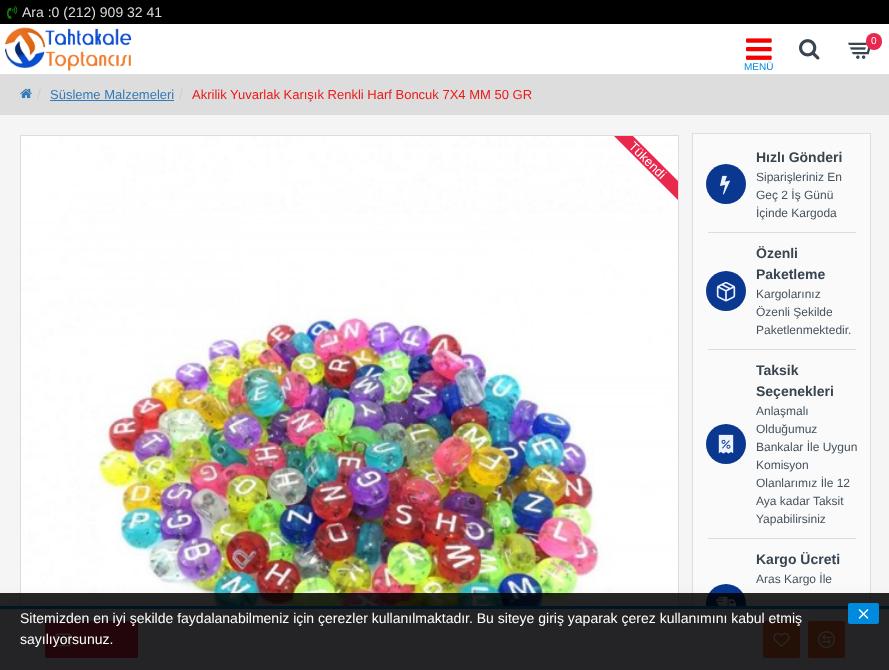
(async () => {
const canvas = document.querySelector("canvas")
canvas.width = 889
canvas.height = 670
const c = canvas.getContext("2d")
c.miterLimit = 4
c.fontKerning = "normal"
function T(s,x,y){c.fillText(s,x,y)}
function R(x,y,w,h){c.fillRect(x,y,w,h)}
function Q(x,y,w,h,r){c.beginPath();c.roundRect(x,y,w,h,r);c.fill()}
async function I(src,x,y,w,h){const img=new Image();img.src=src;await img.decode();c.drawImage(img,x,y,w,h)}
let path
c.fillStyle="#f5f5f5"
R(0,0,889,670)
c.fillStyle="#000"
R(0,0,889,24)
await I("1.png",7,6,11,13)
c.font="14px Liberation Sans"
c.fillStyle="#ddd"
T("Ara :0 (212) 909 32 41",22,17)
c.fillStyle="#fff"
R(0,24,889,50)
await I("2.png",4,27,128,45)
await I("3.png",799,39,21,21)
await I("4.png",848,42,23,17)
c.fillStyle="#e8284d"
Q(866,33,16,17,8)
c.font="10px Liberation Sans"
c.fillStyle="#fff"
T("0",871,44)
await I("5.png",746,38,26,22)
c.fillStyle="#008add"
T("MENÜ",744,70)
c.fillStyle="#ddd"
R(0,74,889,41)
await I("6.png",20,88,12,11)
c.font="14px Liberation Sans"
c.fillStyle="#ccc"
T("/",37,99)
c.font="13px Liberation Sans"
c.fillStyle="#337ab7"
T("Süsleme Malzemeleri",50,99)
R(50,100,124,1)
c.font="14px Liberation Sans"
c.fillStyle="#ccc"
T("/",179,99)
c.font="13px Liberation Sans"
c.fillStyle="#eb1a1a"
T("Akrilik Yuvarlak Karışık Renkli Harf Boncuk 7X4 MM 50 GR",192,99)
c.strokeStyle="#ddd"
c.strokeRect(20.5,135.5,658,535)
await I("7.png",21,136,657,470)
c.save()
c.beginPath()
c.rect(21,136,657,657)
c.clip()
c.fillStyle="#e8284d"
path = new Path2D("M547 50l212 212l-10 9l-212-212z")
c.fill(path)
c.restore()
c.fillStyle="#fff"
c.save()
c.translate(628,147)
c.rotate(45 * Math.PI / 180)
c.fillText("Tükendi",0,0)
c.restore()
c.fillStyle="#fafafa"
R(693,134,177,472)
c.strokeRect(692.5,133.5,178,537)
c.fillStyle="#0a378f"
c.beginPath()
c.arc(726,604,20,0,7)
c.fill()
await I("14.png",716,596,20,10)
c.fillStyle="#00000033"
c.filter="blur(10px)"
c.beginPath()
c.rect(5,606,879,54)
c.fill()
c.filter="none"
c.fillStyle="#edf2fe"
R(0,609,889,61)
c.fillStyle="#008add"
R(0,606,889,3)
c.fillStyle="#e8284d"
Q(45,621,93,37,2)
await I("8.png",55,633,17,14)
c.fillStyle="#f36d37"
Q(763,621,37,37,2)
await I("9.png",773,632,17,16)
Q(808,621,37,37,2)
await I("10.png",818,631,17,18)
c.fillStyle="#ddd"
R(708,232,148,1)
c.fillStyle="#0a378f"
c.beginPath()
c.arc(726,184,20,0,7)
c.fill()
await I("11.png",720,175,10,20)
c.font="bold 14px Liberation Sans"
c.fillStyle="#38444f"
T("Hızlı Gönderi",756,162)
c.font="12px Liberation Sans"
c.fillStyle="#45525e"
T("Siparişleriniz En",756,181)
T("Geç 2 İş Günü",756,199)
T("İçinde Kargoda",756,217)
c.fillStyle="#ddd"
R(708,349,148,1)
c.fillStyle="#0a378f"
c.beginPath()
c.arc(726,291,20,0,7)
c.fill()
await I("12.png",716,282,20,20)
c.font="bold 14px Liberation Sans"
c.fillStyle="#38444f"
T("Özenli",756,258)
T("Paketleme",756,279)
c.font="12px Liberation Sans"
c.fillStyle="#45525e"
T("Kargolarınız",756,298)
T("Özenli Şekilde",756,316)
T("Paketlenmektedir.",756,334)
c.fillStyle="#ddd"
R(708,538,148,1)
c.fillStyle="#0a378f"
c.beginPath()
c.arc(726,444,20,0,7)
c.fill()
await I("13.png",718,434,16,20)
c.font="bold 14px Liberation Sans"
c.fillStyle="#38444f"
T("Taksik",756,375)
T("Seçenekleri",756,396)
c.font="12px Liberation Sans"
c.fillStyle="#45525e"
T("Anlaşmalı",756,415)
T("Olduğumuz",756,433)
T("Bankalar İle Uygun",756,451)
T("Komisyon",756,469)
T("Olanlarımız İle 12",756,487)
T("Aya kadar Taksit",756,505)
T("Yapabilirsiniz",756,523)
c.font="bold 14px Liberation Sans"
c.fillStyle="#38444f"
T("Kargo Ücreti",756,564)
c.font="12px Liberation Sans"
c.fillStyle="#45525e"
T("Aras Kargo İle",756,583)
c.fillStyle="#000000d9"
R(0,593,889,77)
c.font="14px Liberation Sans"
c.fillStyle="#fff"
T("Sitemizden en iyi şekilde faydalanabilmeniz için çerezler kullanılmaktadır. Bu siteye giriş yaparak çerez kullanımını kabul etmiş",20,623)
T("sayılıyorsunuz.",20,644)
c.fillStyle="#008add"
Q(848,603,31,21,2)
await I("15.png",858,609,11,10)
})()
